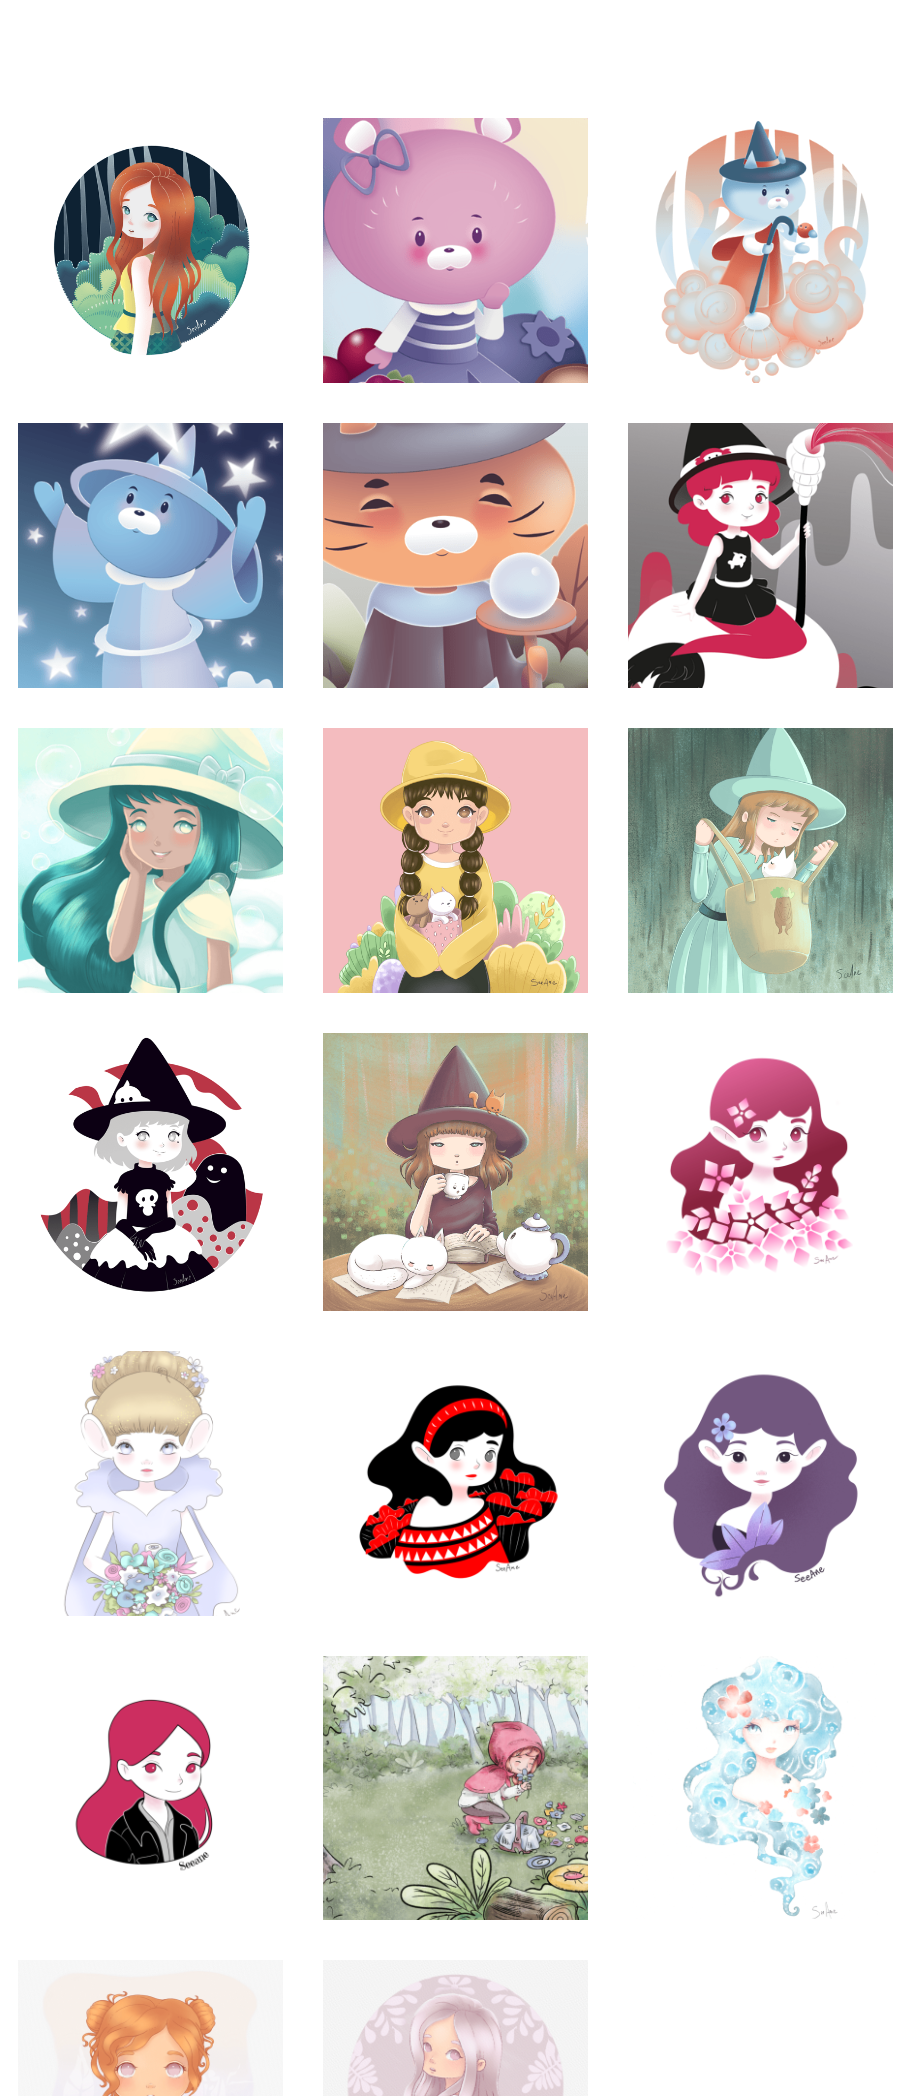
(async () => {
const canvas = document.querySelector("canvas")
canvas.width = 911
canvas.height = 2096
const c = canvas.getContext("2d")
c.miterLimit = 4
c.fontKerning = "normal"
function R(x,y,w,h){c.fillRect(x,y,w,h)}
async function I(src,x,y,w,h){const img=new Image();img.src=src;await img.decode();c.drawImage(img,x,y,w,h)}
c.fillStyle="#fff"
R(0,0,911,2096)
await I("1.png",53,145,197,211)
await I("2.png",323,118,265,265)
await I("3.png",655,120,214,263)
await I("4.png",18,423,265,265)
await I("5.png",323,423,265,265)
await I("6.png",628,423,265,265)
await I("7.png",18,728,265,265)
await I("8.png",323,728,265,265)
await I("9.png",628,728,265,265)
await I("10.png",40,1037,223,255)
await I("11.png",323,1033,265,278)
await I("12.png",666,1057,187,219)
await I("13.png",63,1351,177,265)
await I("14.png",359,1385,199,194)
await I("15.png",663,1374,195,224)
await I("16.png",75,1699,138,172)
await I("17.png",323,1656,265,264)
await I("18.png",633,1656,245,263)
await I("19.png",18,1960,265,136)
await I("20.png",323,1960,265,136)
})()
